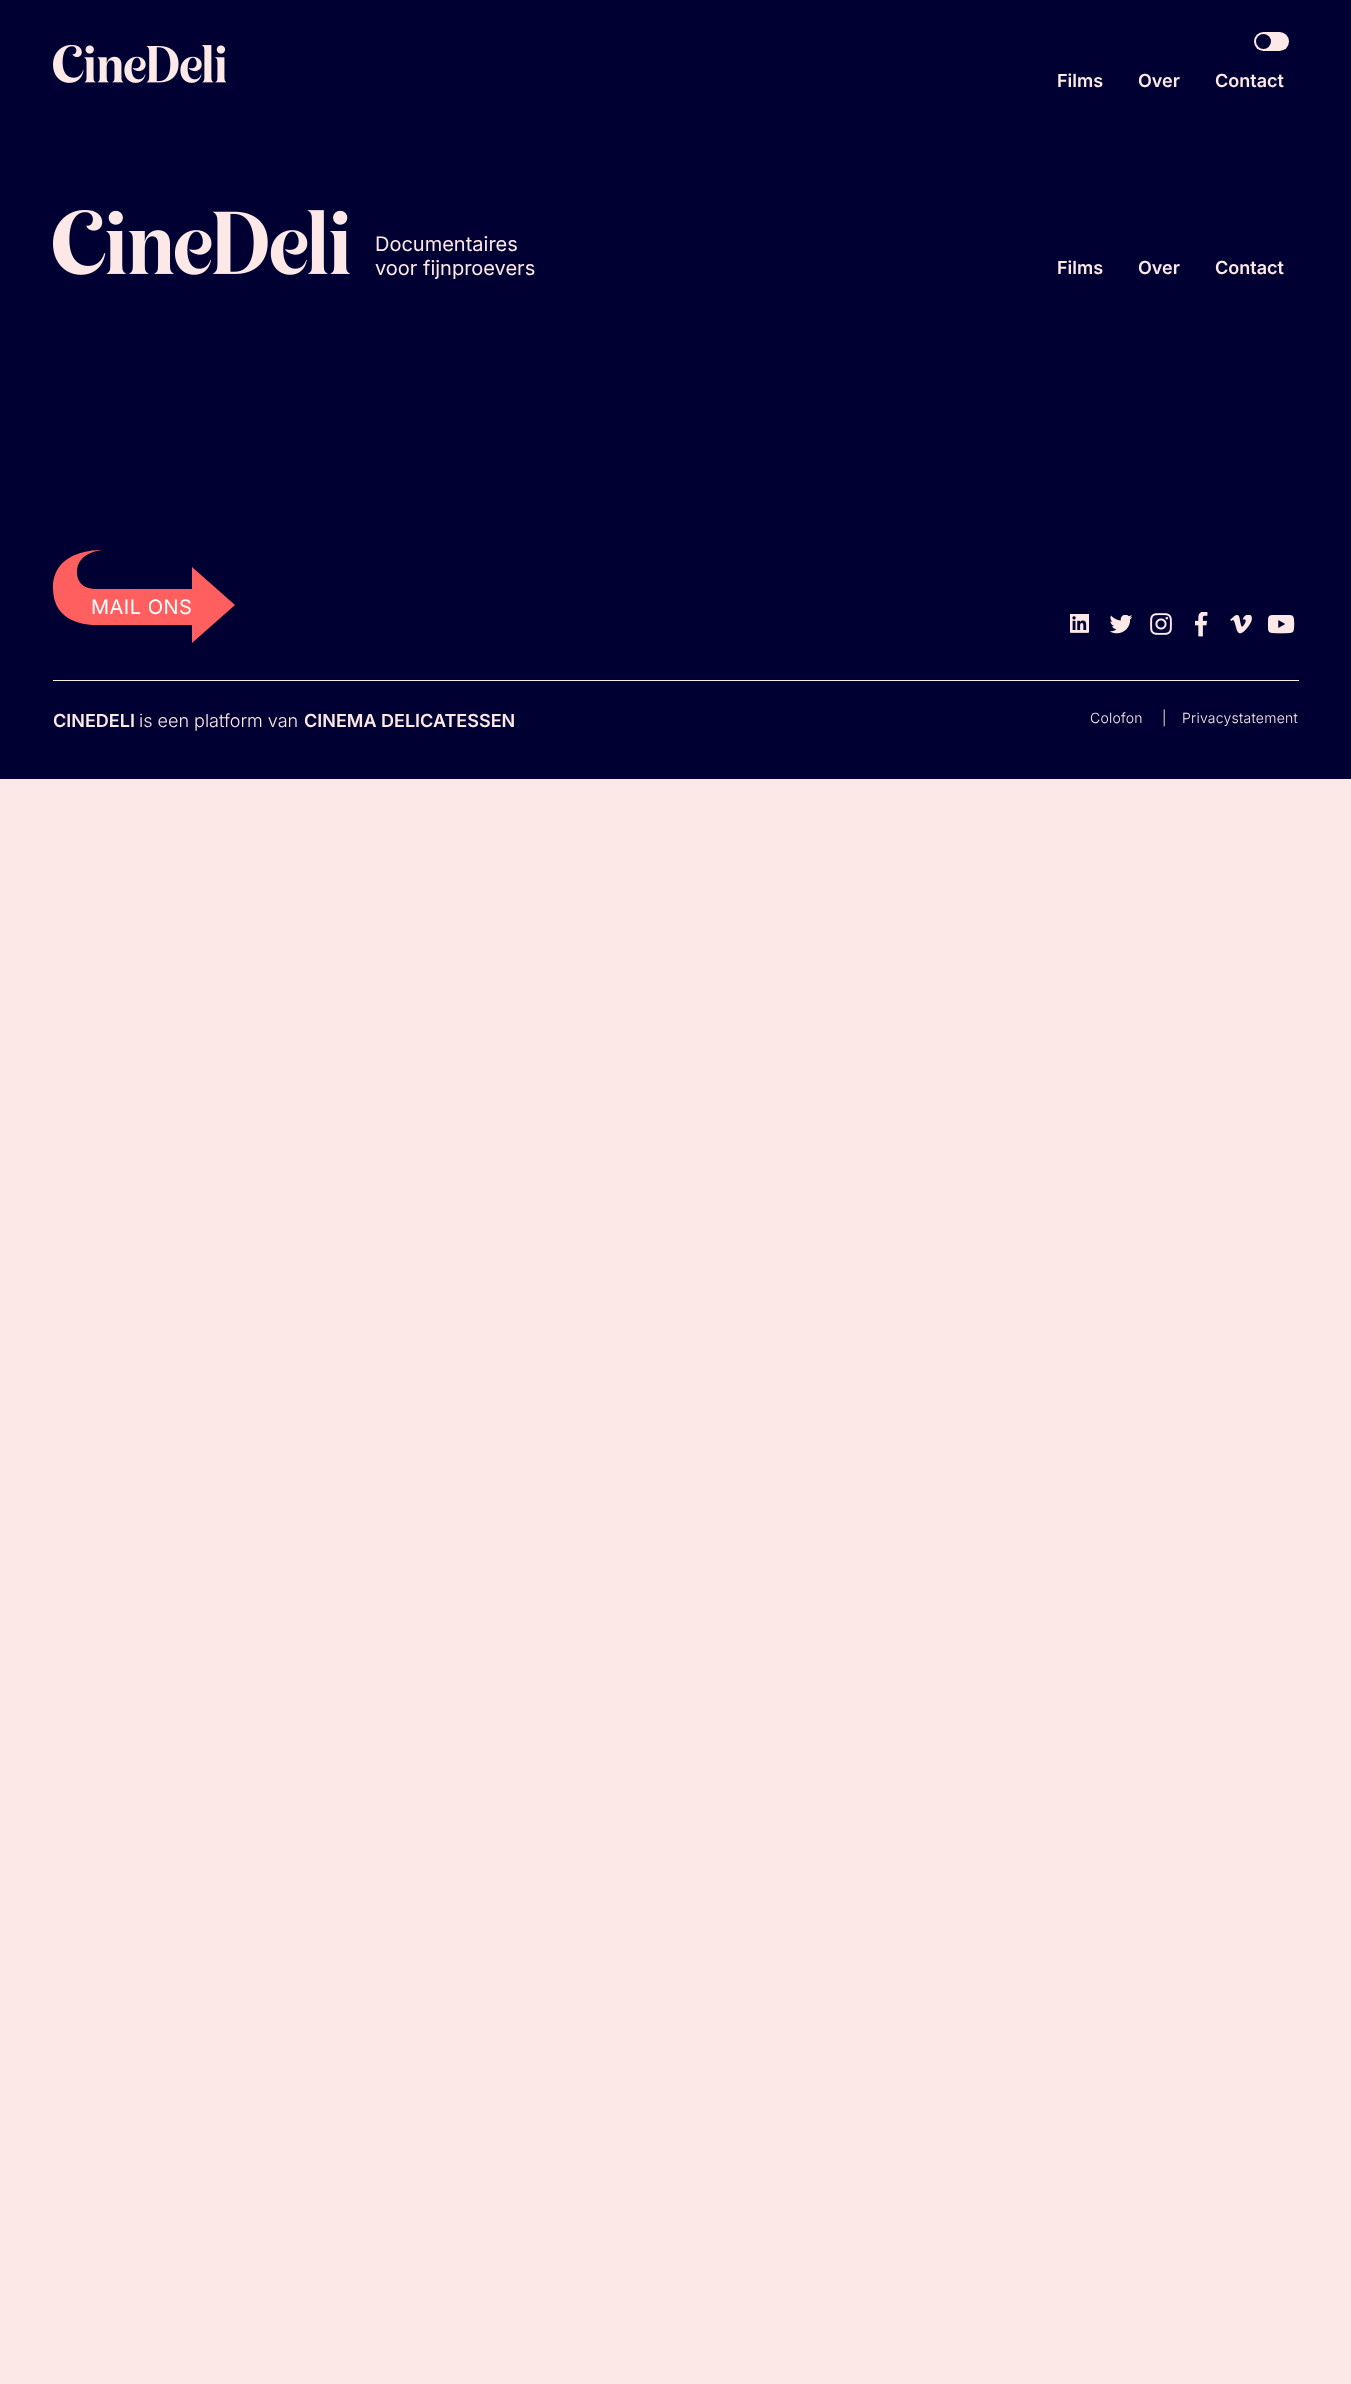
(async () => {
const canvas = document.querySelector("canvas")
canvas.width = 1351
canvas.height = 2384
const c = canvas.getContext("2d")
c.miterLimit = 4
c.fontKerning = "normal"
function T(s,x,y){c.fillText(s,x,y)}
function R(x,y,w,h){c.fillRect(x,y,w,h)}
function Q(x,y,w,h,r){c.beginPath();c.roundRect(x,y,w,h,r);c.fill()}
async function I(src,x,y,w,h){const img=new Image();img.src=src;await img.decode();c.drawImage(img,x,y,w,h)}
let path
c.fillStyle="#fde8e8"
R(0,0,1351,2384)
c.fillStyle="#000032"
R(0,0,1351,779)
await I("1.png",53,45,173,38)
c.fillStyle="#fde8e8"
Q(1254,32,35,19,9.5)
c.fillStyle="#000032"
c.beginPath()
c.arc(1263.5,41.5,7.5,0,7)
c.fill()
c.font="600 18px Inter"
c.fillStyle="#fde8e8"
T("Films",1057,87)
T("Over",1138,87)
T("Contact",1215,87)
await I("2.png",53,210,297,65)
c.font="20px Inter"
T("Documentaires",375,251)
T("voor fijnproevers",375,275)
c.font="600 18px Inter"
T("Films",1057,274)
T("Over",1138,274)
T("Contact",1215,274)
c.fillStyle="#ff5f5f"
path = new Path2D("M98 589c0 0-21 2-21-17c0-20 25-22 25-22c0 0-49-2-49 38c0 38 39 37 45 37z")
c.fill(path)
path = new Path2D("M192 643l43-38l-43-38z")
c.fill(path)
c.beginPath()
c.roundRect(89,589,104,36,[0,0,0,8])
c.fill()
c.letterSpacing="0.5px"
c.font="20px Inter"
c.fillStyle="#fff"
T("MAIL ONS",91,614)
await I("3.png",1070,614,20,19)
await I("4.png",1110,615,23,19)
await I("5.png",1150,613,22,22)
await I("6.png",1195,612,13,25)
await I("7.png",1230,615,22,19)
await I("8.png",1268,615,27,19)
c.fillStyle="#fde8e8"
R(53,680,1246,1)
c.letterSpacing="0px"
c.font="600 18px Inter"
T("CINEDELI",53,727)
c.font="300 18px Inter"
T("is een platform van",139,727)
c.font="600 18px Inter"
T("CINEMA DELICATESSEN",304,727)
c.letterSpacing="0.25px"
c.font="300 14px Inter"
T("Colofon",1090,723)
T("|",1162,723)
T("Privacystatement",1182,723)
})()
